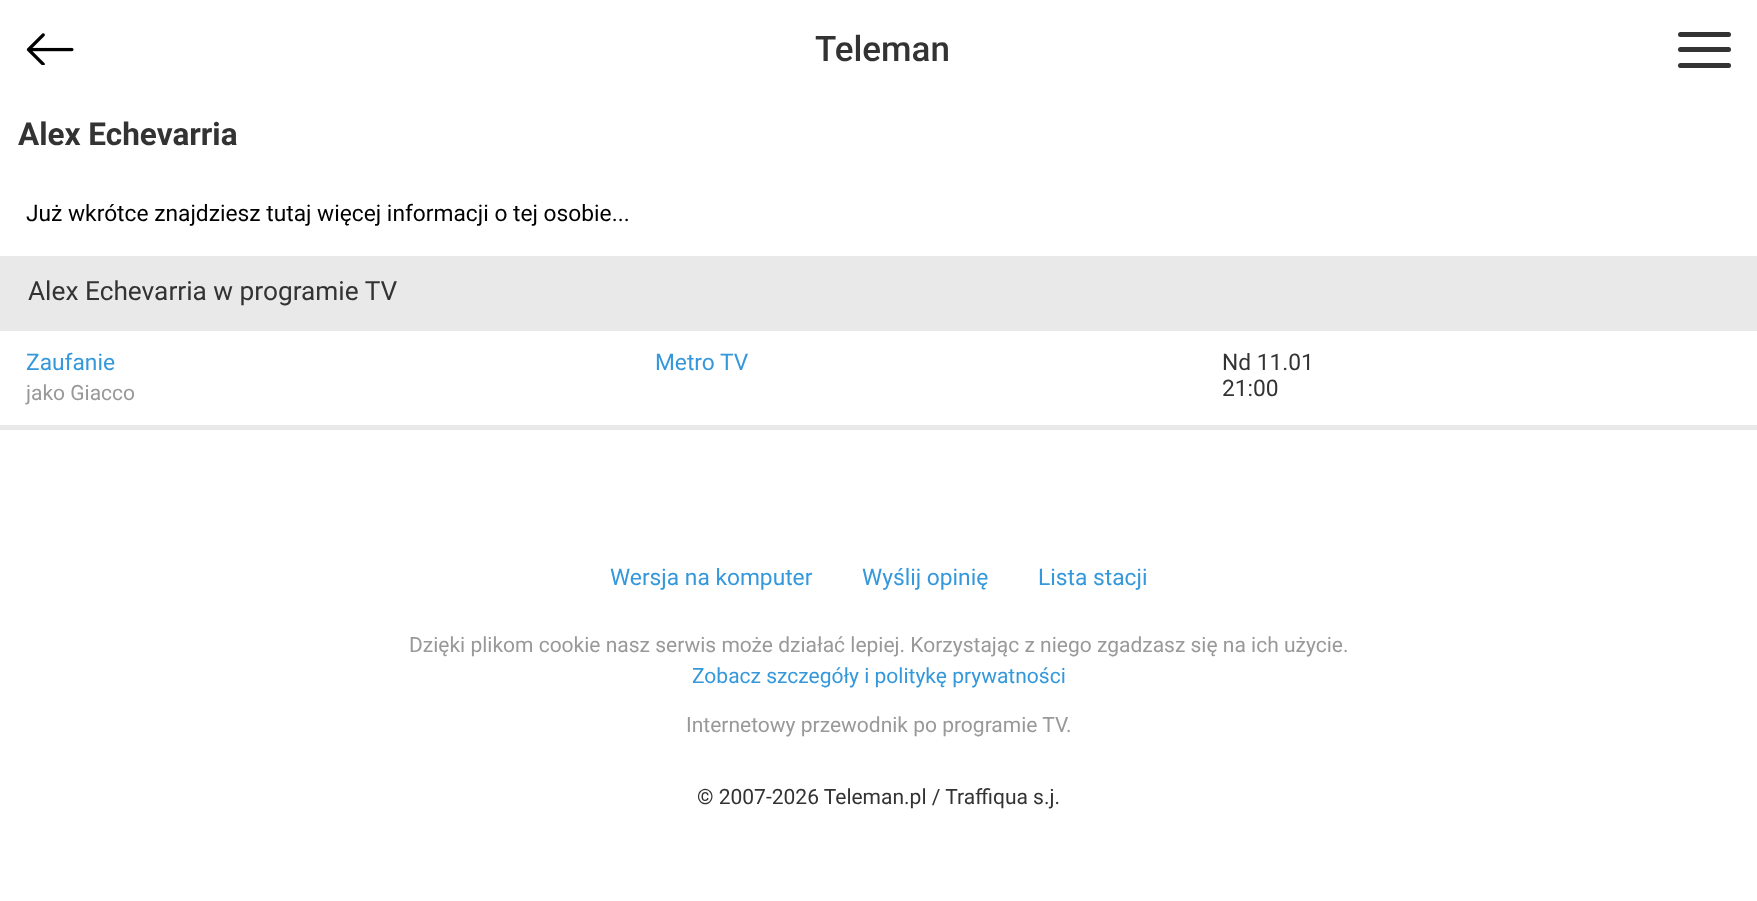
(async () => {
const canvas = document.querySelector("canvas")
canvas.width = 1757
canvas.height = 901
const c = canvas.getContext("2d")
c.miterLimit = 4
c.fontKerning = "normal"
function T(s,x,y){c.fillText(s,x,y)}
function R(x,y,w,h){c.fillRect(x,y,w,h)}
function Q(x,y,w,h,r){c.beginPath();c.roundRect(x,y,w,h,r);c.fill()}
async function I(src,x,y,w,h){const img=new Image();img.src=src;await img.decode();c.drawImage(img,x,y,w,h)}
c.fillStyle="#fff"
R(0,0,1757,901)
await I("1.png",26,33,48,32)
c.font="500 35px Roboto"
c.fillStyle="#333"
T("Teleman",815,61)
Q(1678,32,53,5,2.5)
Q(1678,47,53,5,2.5)
Q(1678,63,53,5,2.5)
c.font="bold 31.5px Roboto"
T("Alex Echevarria",18,145)
c.font="22.75px Roboto"
c.fillStyle="#000"
T("Już wkrótce znajdziesz tutaj więcej informacji o tej osobie...",26,221)
c.fillStyle="#e9e9e9"
R(0,256,1757,75)
c.font="26.25px Roboto"
c.fillStyle="#333"
T("Alex Echevarria w programie TV",28,300)
c.font="22.75px Roboto"
c.fillStyle="#3498db"
T("Zaufanie",26,370)
c.font="21px Roboto"
c.fillStyle="#999"
T("jako Giacco",26,400)
c.font="22.75px Roboto"
c.fillStyle="#3498db"
T("Metro TV",655,370)
c.fillStyle="#e9e9e9"
R(0,425,1757,5)
c.fillStyle="#333"
T("Nd 11.01",1222,370)
T("21:00",1222,396)
c.fillStyle="#3498db"
T("Wersja na komputer",610,585)
T("Wyślij opinię",862,585)
T("Lista stacji",1038,585)
c.font="21px Roboto"
c.fillStyle="#999"
T("Dzięki plikom cookie nasz serwis może działać lepiej. Korzystając z niego zgadzasz się na ich użycie.",409,652)
c.fillStyle="#3498db"
T("Zobacz szczegóły i politykę prywatności",692,683)
c.fillStyle="#999"
T("Internetowy przewodnik po programie TV.",686,732)
c.fillStyle="#333"
T("© 2007-2026 Teleman.pl / Traffiqua s.j.",697,804)
})()
